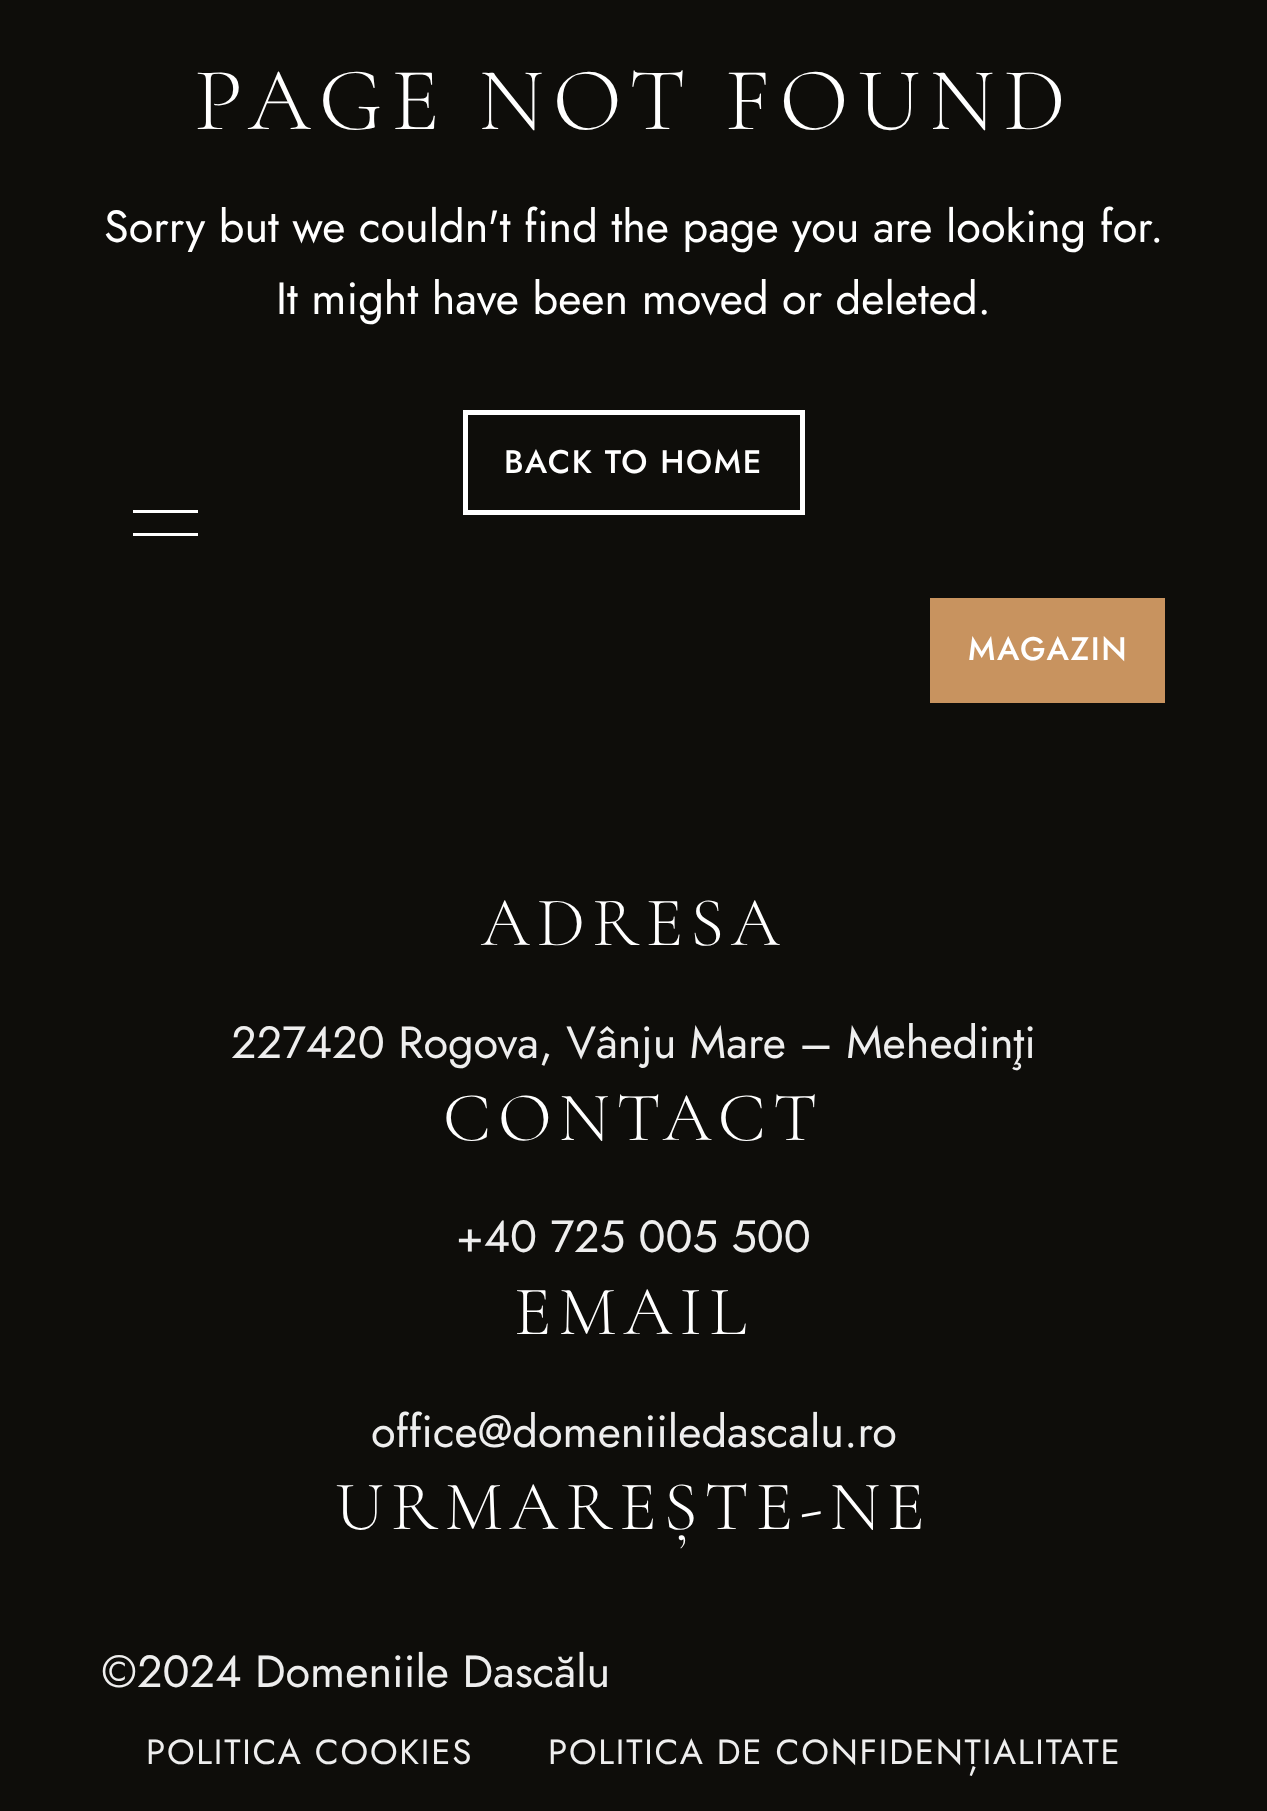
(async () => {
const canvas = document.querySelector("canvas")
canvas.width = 1267
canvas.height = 1811
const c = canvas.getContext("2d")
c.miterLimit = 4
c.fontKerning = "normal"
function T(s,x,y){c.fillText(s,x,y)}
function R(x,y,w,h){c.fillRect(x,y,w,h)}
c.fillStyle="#0e0d0a"
R(0,0,1267,1811)
c.letterSpacing="9px"
c.font="300 90px Cormorant Garamond"
c.fillStyle="#fff"
T("PAGE NOT FOUND",194,129)
c.letterSpacing="0px"
c.font="45px Jost"
T("Sorry but we couldn't find the page you are looking for.",104,242)
T("It might have been moved or deleted.",276,314)
c.strokeStyle="#fff"
c.lineWidth=5
c.strokeRect(465.5,412.5,337,100)
c.letterSpacing="1.6px"
c.font="500 32.5px Jost"
T("BACK TO HOME",504,473)
R(133,510,65,3)
R(133,533,65,3)
c.fillStyle="#c8935f"
R(930,598,235,105)
c.fillStyle="#fff"
T("MAGAZIN",968,660)
c.letterSpacing="7px"
c.font="300 70px Cormorant Garamond"
T("ADRESA",481,945)
c.letterSpacing="0px"
c.font="45px Jost"
c.fillStyle="#eee"
T("227420 Rogova, Vânju Mare – Mehedinţi",231,1058)
c.letterSpacing="7px"
c.font="300 70px Cormorant Garamond"
c.fillStyle="#fff"
T("CONTACT",443,1140)
c.letterSpacing="0px"
c.font="45px Jost"
c.fillStyle="#eee"
T("+40 725 005 500",456,1252)
c.letterSpacing="7px"
c.font="300 70px Cormorant Garamond"
c.fillStyle="#fff"
T("EMAIL",514,1334)
c.letterSpacing="0px"
c.font="45px Jost"
c.fillStyle="#eee"
T("office@domeniiledascalu.ro",371,1447)
c.letterSpacing="7px"
c.font="300 70px Cormorant Garamond"
c.fillStyle="#fff"
T("URMAREȘTE-NE",335,1529)
c.letterSpacing="0px"
c.font="45px Jost"
c.fillStyle="#eee"
T("©2024 Domeniile Dascălu",101,1687)
c.letterSpacing="1.75px"
c.font="35px Jost"
T("POLITICA COOKIES",146,1764)
T("POLITICA DE CONFIDENȚIALITATE",548,1764)
})()
